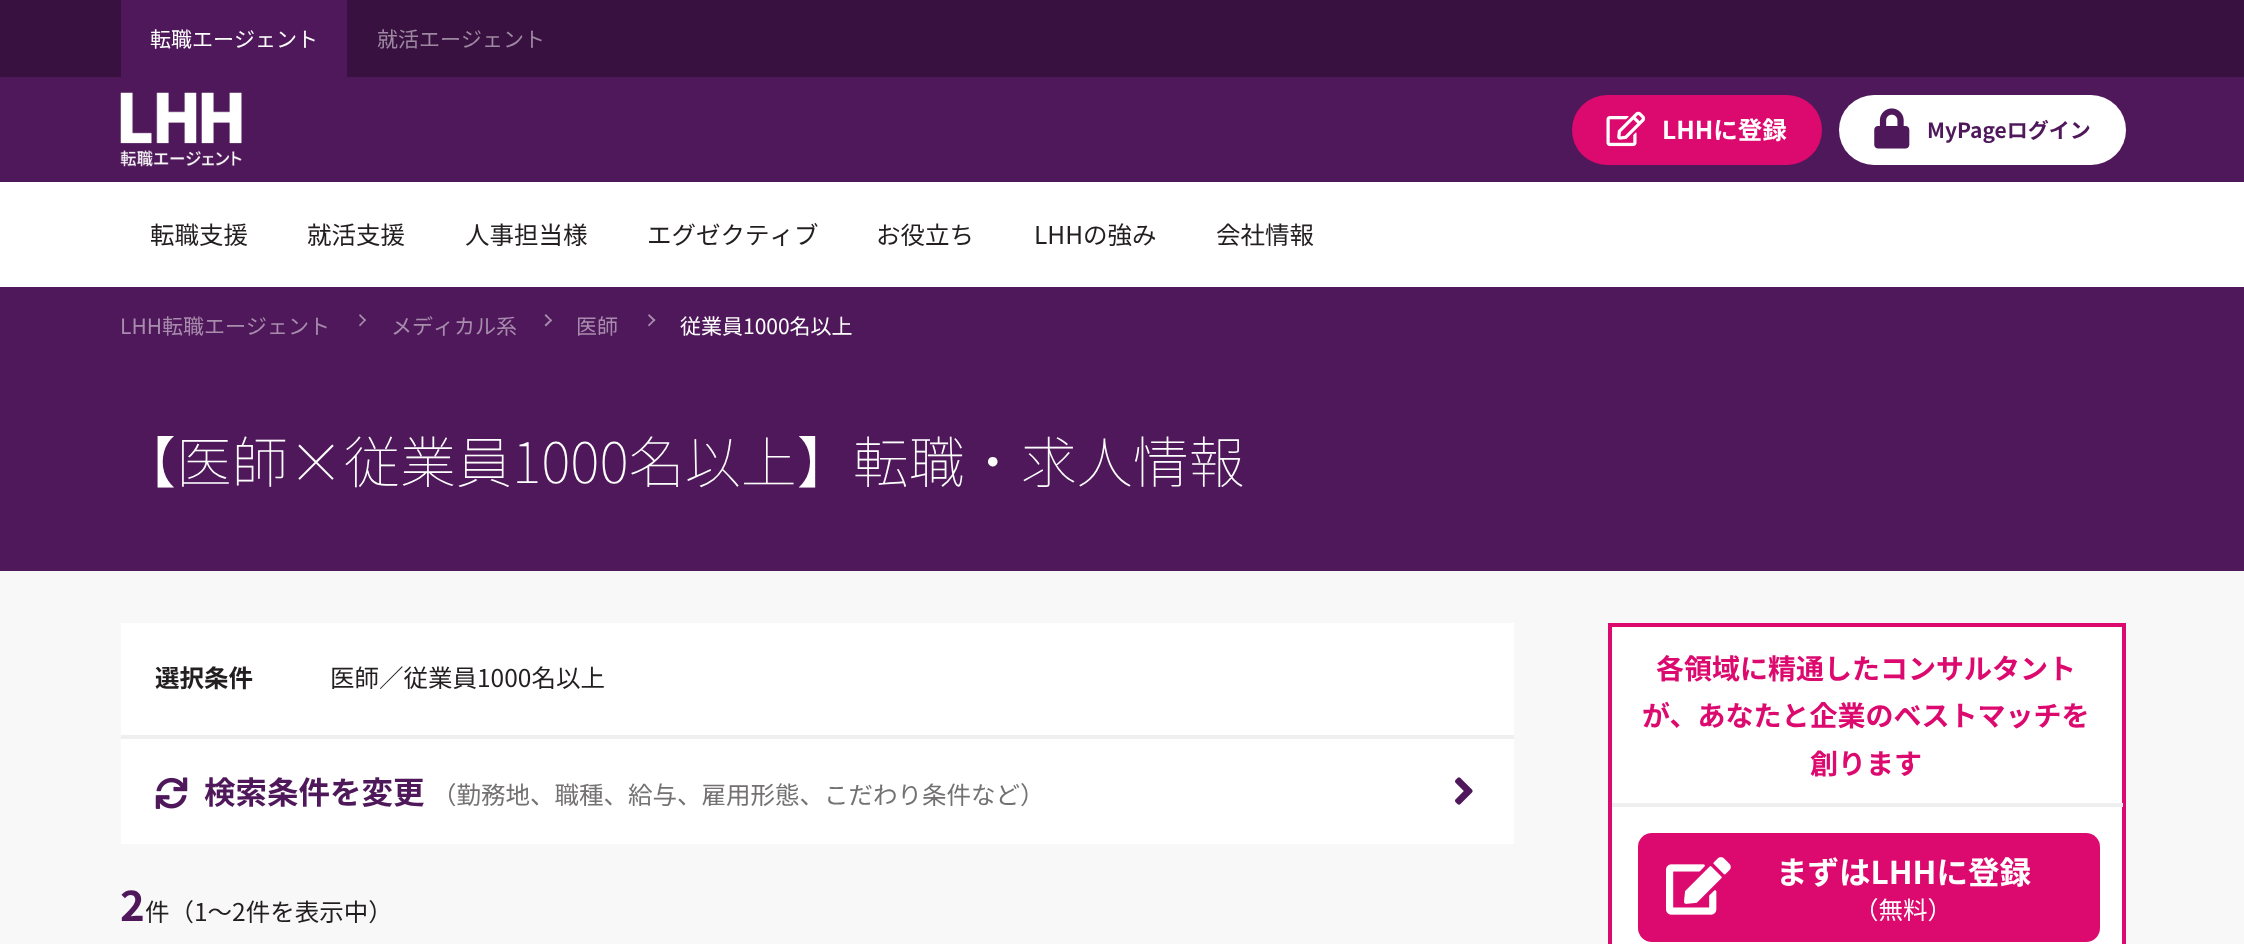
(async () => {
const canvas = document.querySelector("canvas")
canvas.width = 2244
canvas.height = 944
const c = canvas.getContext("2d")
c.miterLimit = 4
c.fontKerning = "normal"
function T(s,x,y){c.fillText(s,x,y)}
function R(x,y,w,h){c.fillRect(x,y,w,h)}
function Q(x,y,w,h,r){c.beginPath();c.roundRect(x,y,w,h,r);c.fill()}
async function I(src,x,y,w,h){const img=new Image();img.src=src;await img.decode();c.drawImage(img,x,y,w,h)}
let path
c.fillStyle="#fff"
R(0,0,2244,944)
c.fillStyle="#4f185a"
R(0,77,2244,105)
c.fillStyle="#391141"
R(0,0,2244,77)
c.fillStyle="#4f185a"
R(121,0,226,77)
c.font="21px Noto Sans JP"
c.fillStyle="#fff"
T("転職エージェント",150,47)
c.fillStyle="#9c88a0"
T("就活エージェント",377,47)
await I("1.png",120,92,122,75)
c.fillStyle="#dc0a6f"
Q(1572,95,250,70,35)
await I("2.png",1606,111,40,36)
c.font="bold 24.5px Noto Sans JP"
c.fillStyle="#fff"
T("LHHに登録",1662,139)
Q(1839,95,287,70,35)
await I("3.png",1874,108,36,41)
c.font="bold 21px Noto Sans JP"
c.fillStyle="#4f185a"
T("MyPageログイン",1927,138)
c.font="24.5px Noto Sans JP"
c.fillStyle="#231f20"
T("転職支援",150,244)
T("就活支援",307,244)
T("人事担当様",465,244)
T("エグゼクティブ",647,244)
T("お役立ち",876,244)
T("LHHの強み",1034,244)
T("会社情報",1216,244)
c.fillStyle="#4f185a"
R(0,287,2244,284)
c.font="21px Noto Sans JP"
c.fillStyle="#a78cad"
T("LHH転職エージェント",120,334)
path = new Path2D("M360 314l6 6l-1 1.5l-6-6z")
c.fill(path)
path = new Path2D("M365 319l1 1l-6 6.5l-1-1.5z")
c.fill(path)
T("メディカル系",391,334)
path = new Path2D("M546 314l6 6.5l-1 1l-6.5-6z")
c.fill(path)
path = new Path2D("M551 319l1 1.5l-6 6l-1.5-1.5z")
c.fill(path)
T("医師",576,334)
path = new Path2D("M649 314l6.5 6l-1.5 1.5l-6-6z")
c.fill(path)
path = new Path2D("M654 319l1.5 1l-6.5 6.5l-1-1.5z")
c.fill(path)
c.fillStyle="#fff"
T("従業員1000名以上",680,334)
c.font="100 56px Noto Sans JP"
T("【医師×従業員1000名以上】転職・求人情報",120,483)
c.fillStyle="#f8f8f9"
R(0,571,2244,373)
c.fillStyle="#fff"
R(121,623,1393,221)
c.fillStyle="#efefef"
R(121,735,1393,4)
c.font="bold 24.5px Noto Sans JP"
c.fillStyle="#231f20"
T("選択条件",155,687)
c.font="24.5px Noto Sans JP"
T("医師／従業員1000名以上",330,687)
await I("4.png",155,777,33,32)
c.font="bold 31.5px Noto Sans JP"
c.fillStyle="#4f185a"
T("検索条件を変更",204,804)
c.font="24.5px Noto Sans JP"
c.fillStyle="#737172"
T("（勤務地、職種、給与、雇用形態、こだわり条件など）",432,804)
await I("5.png",1455,777,18,28)
c.font="bold 42px Noto Sans JP"
c.fillStyle="#4f185a"
T("2",120,921)
c.font="24.5px Noto Sans JP"
c.fillStyle="#231f20"
T("件（1～2件を表示中）",145,921)
c.fillStyle="#fff"
c.beginPath()
c.rect(1610,625,514,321)
c.fill()
c.strokeStyle="#dc0a6f"
c.lineWidth=4
c.stroke()
c.fillStyle="#efefef"
R(1612,803,511,4)
c.font="bold 28px Noto Sans JP"
c.fillStyle="#dc0a6f"
T("各領域に精通したコンサルタント",1656,679)
T("が、あなたと企業のベストマッチを",1642,726)
T("創ります",1810,774)
Q(1638,833,462,109,14)
await I("6.png",1666,857,65,58)
c.font="bold 31.5px Noto Sans JP"
c.fillStyle="#fff"
T("まずはLHHに登録",1776,884)
c.font="24.5px Noto Sans JP"
T("（無料）",1854,919)
})()
